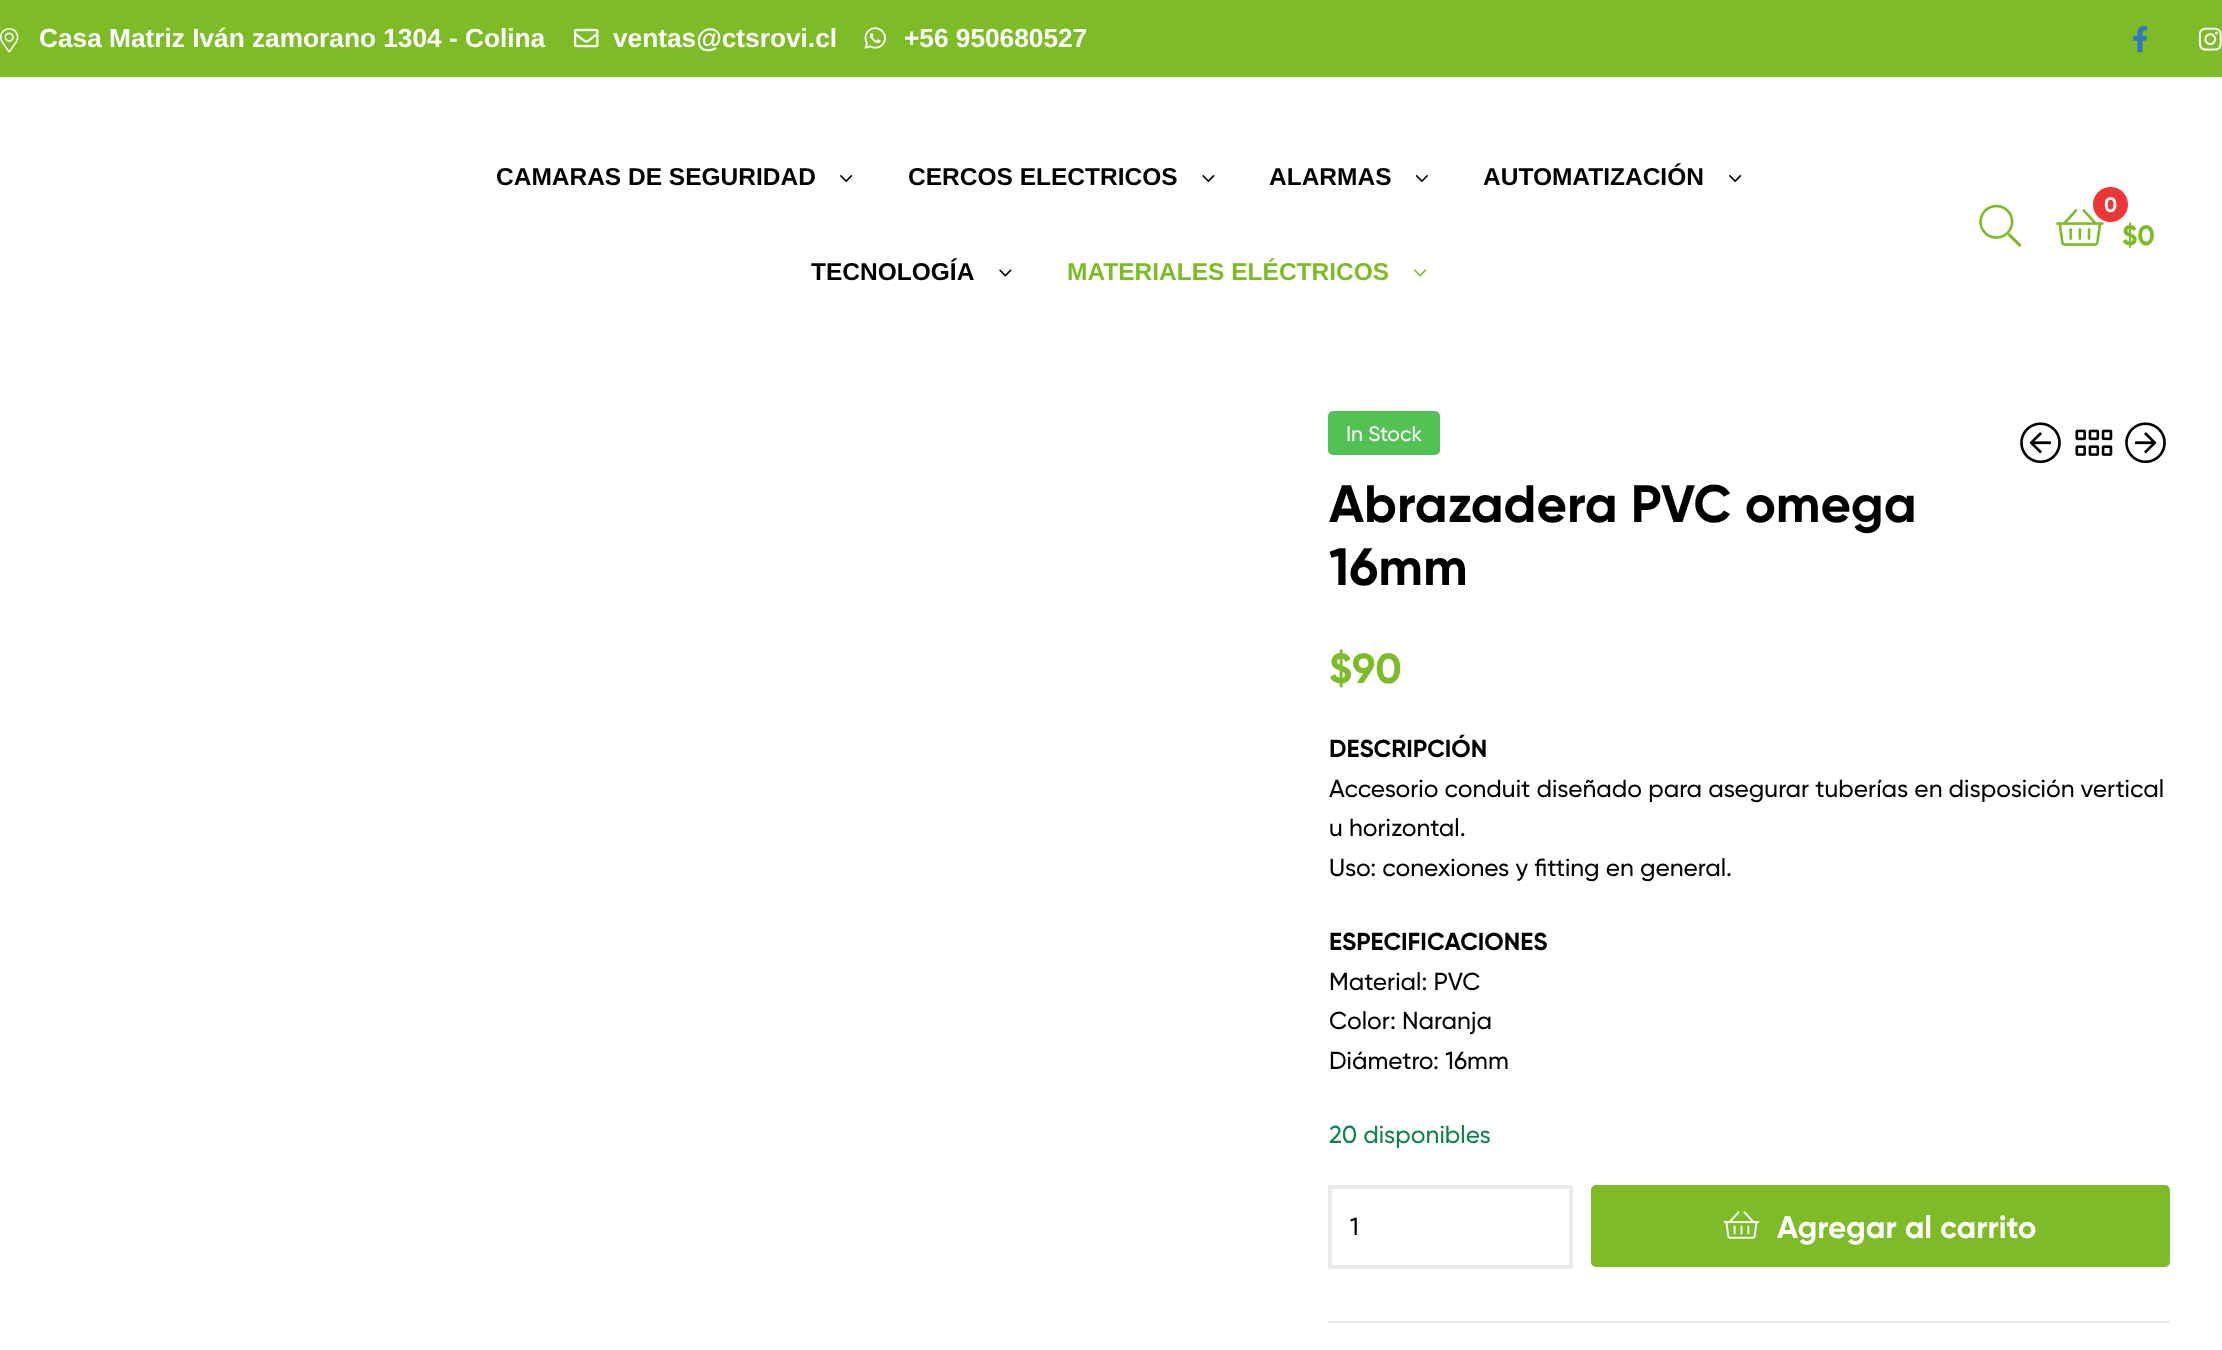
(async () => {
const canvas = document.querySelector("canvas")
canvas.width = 2222
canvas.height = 1350
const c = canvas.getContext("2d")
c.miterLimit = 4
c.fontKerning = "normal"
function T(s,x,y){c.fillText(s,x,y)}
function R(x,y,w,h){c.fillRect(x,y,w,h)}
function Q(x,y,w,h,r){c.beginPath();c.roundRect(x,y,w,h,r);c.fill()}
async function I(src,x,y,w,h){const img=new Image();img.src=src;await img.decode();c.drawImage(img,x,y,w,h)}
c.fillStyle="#fff"
R(0,0,2222,1350)
c.fillStyle="#7dbc26"
R(0,0,2222,77)
await I("1.png",0,28,19,25)
c.font="bold 26.25px Liberation Sans"
c.fillStyle="#fff"
T("Casa Matriz Iván zamorano 1304 - Colina",39,47)
await I("2.png",574,28,25,20)
T("ventas@ctsrovi.cl",613,47)
await I("3.png",864,27,22,22)
T("+56 950680527",904,47)
await I("4.png",2133,26,15,27)
await I("5.png",2198,27,24,24)
c.font="bold 24.5px Liberation Sans"
c.fillStyle="#000"
T("CAMARAS DE SEGURIDAD",496,185)
await I("6.png",840,175,13,7)
T("CERCOS ELECTRICOS",908,185)
await I("7.png",1202,175,13,7)
T("ALARMAS",1269,185)
await I("8.png",1415,175,13,7)
T("AUTOMATIZACIÓN",1483,185)
await I("6.png",1729,175,13,7)
T("TECNOLOGÍA",811,280)
await I("9.png",999,269,13,8)
c.fillStyle="#7dbc26"
T("MATERIALES ELÉCTRICOS",1067,280)
await I("10.png",1414,269,13,8)
await I("11.png",1979,204,43,43)
await I("12.png",2056,209,48,37)
c.fillStyle="#ef3636"
c.beginPath()
c.arc(2110.5,204.5,17.5,0,7)
c.fill()
c.font="bold 21px Gilroy"
c.fillStyle="#fff"
T("0",2104,212)
c.font="bold 28px Gilroy"
c.fillStyle="#7dbc26"
T("$0",2122,245)
c.fillStyle="#54c154"
Q(1328,411,112,44,5)
c.font="500 21px Gilroy"
c.fillStyle="#fff"
T("In Stock",1346,441)
await I("13.png",2020,422,41,42)
await I("14.png",2075,429,38,27)
await I("15.png",2125,422,41,42)
c.font="bold 52.5px Gilroy"
c.fillStyle="#000"
T("Abrazadera PVC omega",1329,522)
T("16mm",1329,585)
c.font="bold 42px Gilroy"
c.fillStyle="#7dbc26"
T("$90",1329,683)
c.font="bold 24.5px Gilroy"
c.fillStyle="#000"
T("DESCRIPCIÓN",1329,757)
c.font="500 24.5px Gilroy"
T("Accesorio conduit diseñado para asegurar tuberías en disposición vertical",1329,797)
T("u horizontal.",1329,836)
T("Uso: conexiones y fitting en general.",1329,876)
c.font="bold 24.5px Gilroy"
T("ESPECIFICACIONES",1329,950)
c.font="500 24.5px Gilroy"
T("Material: PVC",1329,990)
T("Color: Naranja",1329,1029)
T("Diámetro: 16mm",1329,1069)
c.fillStyle="#0f834d"
T("20 disponibles",1329,1143)
c.strokeStyle="#ebebeb"
c.lineWidth=4
c.strokeRect(1330,1187,241,80)
c.fillStyle="#000"
T("1",1350,1235)
c.fillStyle="#7dbc26"
Q(1591,1185,579,82,5)
await I("16.png",1723,1211,37,28)
c.font="bold 31.5px Gilroy"
c.fillStyle="#fff"
T("Agregar al carrito",1777,1238)
c.fillStyle="#ebebeb"
R(1328,1321,842,2)
})()
